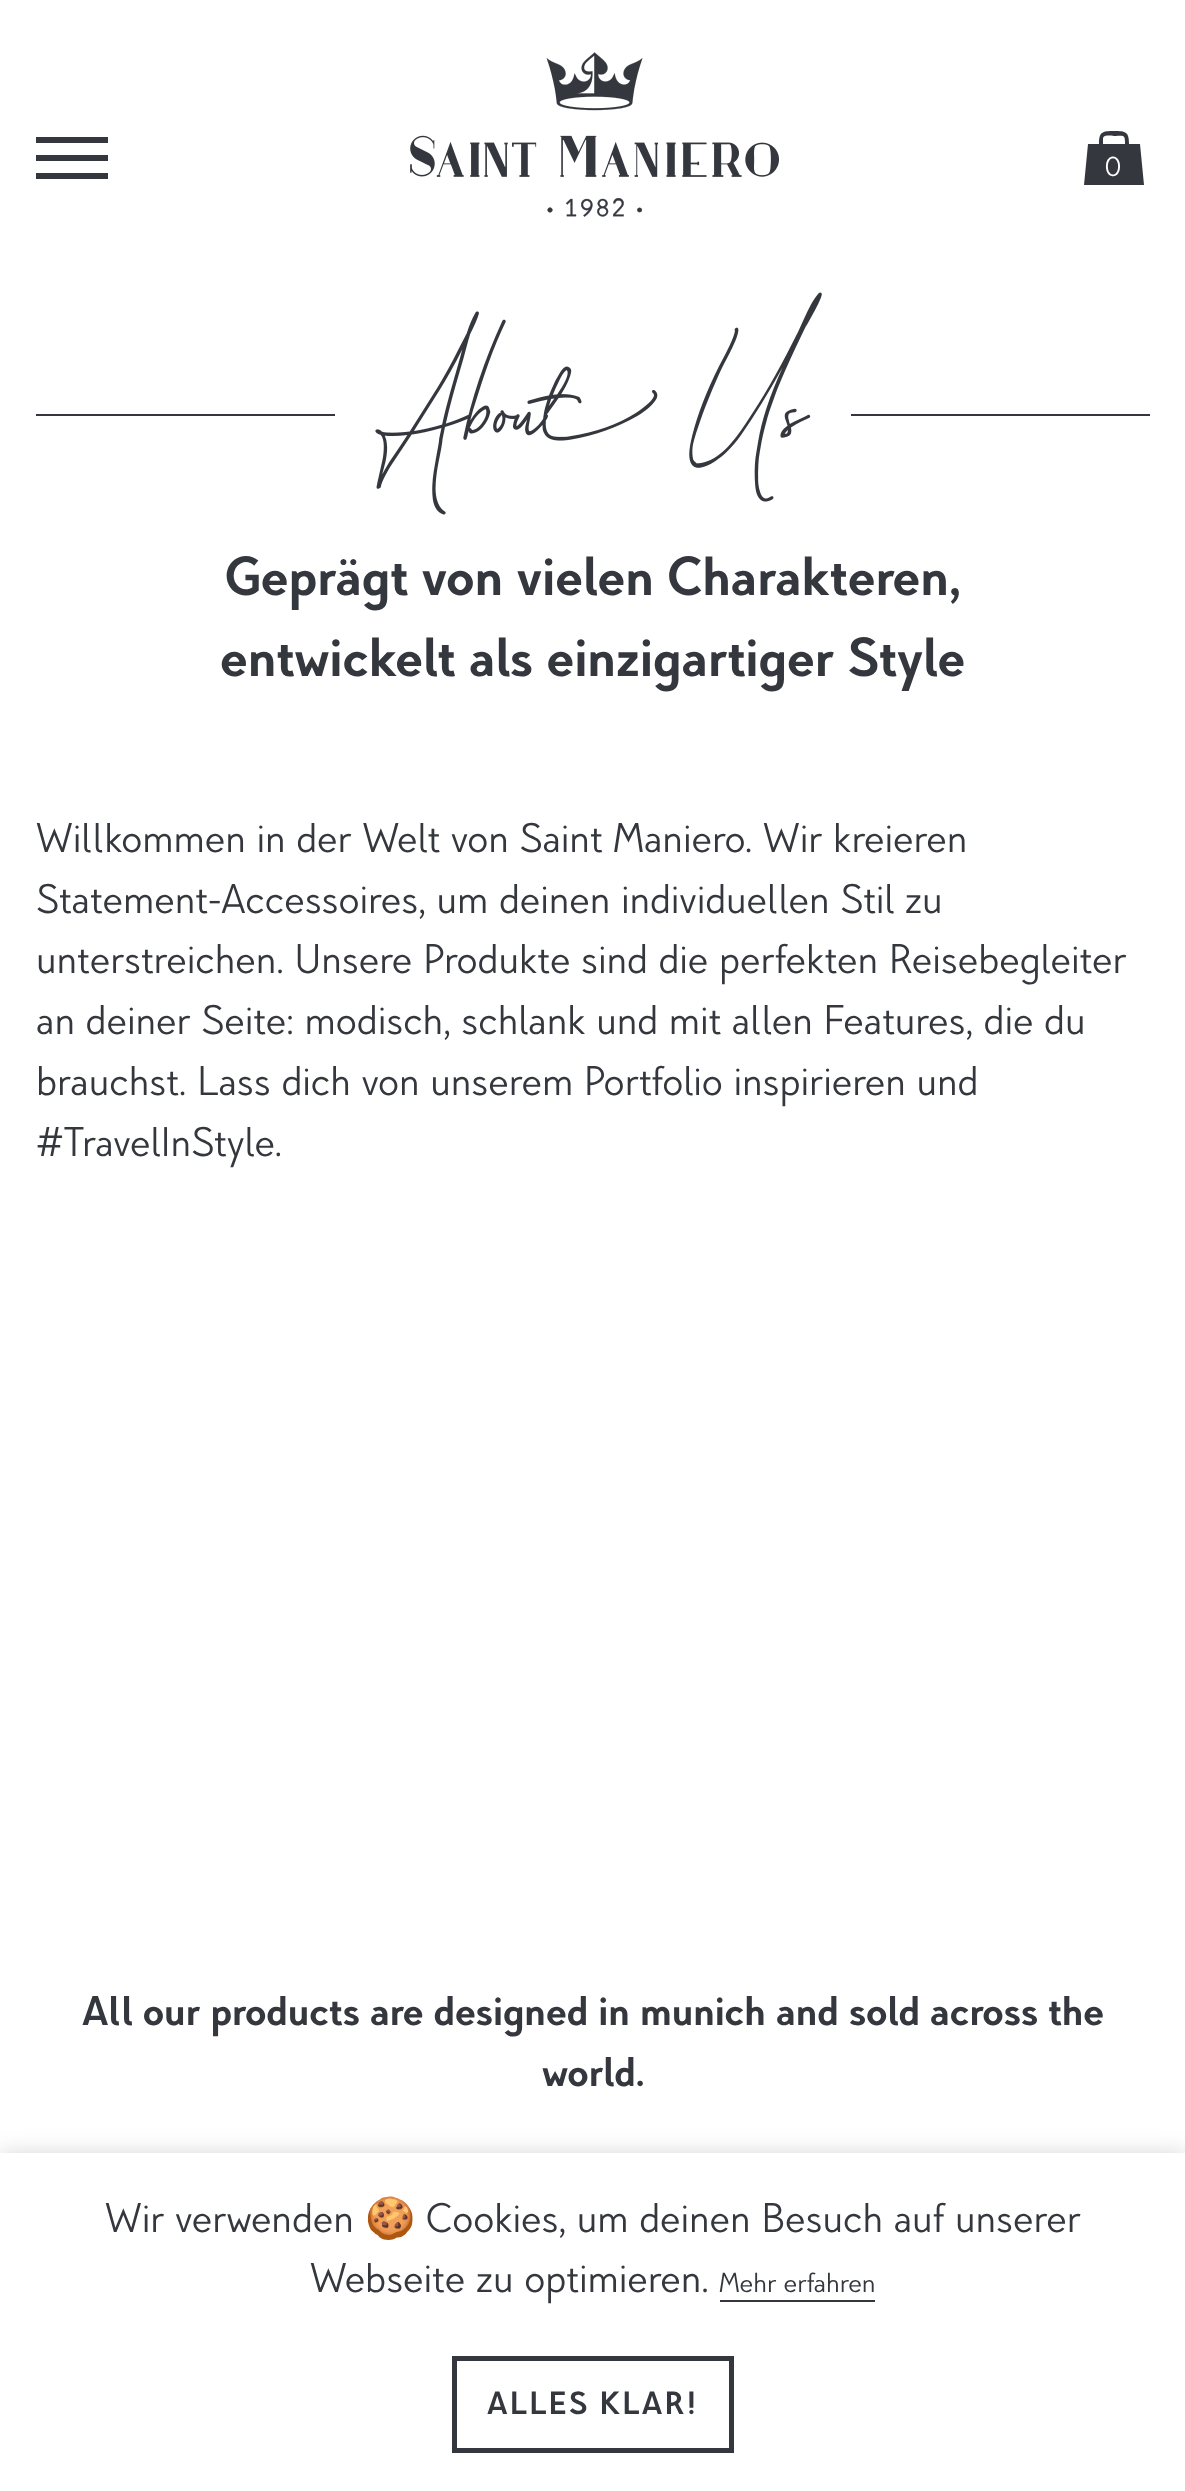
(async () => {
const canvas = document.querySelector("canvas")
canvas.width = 1185
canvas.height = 2491
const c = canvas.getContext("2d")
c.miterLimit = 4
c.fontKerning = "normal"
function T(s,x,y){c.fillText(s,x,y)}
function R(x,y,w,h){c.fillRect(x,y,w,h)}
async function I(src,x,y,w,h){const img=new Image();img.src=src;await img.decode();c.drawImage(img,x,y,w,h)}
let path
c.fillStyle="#fff"
R(0,0,1185,2491)
c.fillStyle="#34373d"
R(36,137,72,6)
R(36,155,72,6)
R(36,173,72,6)
await I("1.png",410,52,369,165)
path = new Path2D("M1140 144h-11c0-12-3-13-15-13c-12 0-15 1-15 13h-11l-4 41h60zm-37-5c0-5 8-3 11-3c10 0 11-2 11 8h-22z")
c.fill(path)
c.font="27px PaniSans"
c.fillStyle="#fff"
T("0",1105,176)
c.fillStyle="#34373d"
R(36,414,1114,2)
c.fillStyle="#fff"
R(335,414,516,2)
await I("2.png",375,292,447,223)
c.font="bold 54px PaniSans"
c.fillStyle="#34373d"
T("Geprägt von vielen Charakteren,",225,595)
T("entwickelt als einzigartiger Style",220,676)
c.font="40.5px PaniSans"
T("Willkommen in der Welt von Saint Maniero. Wir kreieren",36,852)
T("Statement-Accessoires, um deinen individuellen Stil zu",36,913)
T("unterstreichen. Unsere Produkte sind die perfekten Reisebegleiter",36,973)
T("an deiner Seite: modisch, schlank und mit allen Features, die du",36,1034)
T("brauchst. Lass dich von unserem Portfolio inspirieren und",36,1095)
T("#TravelInStyle.",36,1156)
c.font="bold 40.5px PaniSans"
T("All our products are designed in munich and sold across the",82,2025)
T("world.",542,2086)
c.fillStyle="#34373d33"
c.filter="blur(11px)"
c.beginPath()
c.rect(0,2153,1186,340)
c.fill()
c.filter="none"
c.fillStyle="#fff"
R(0,2153,1185,338)
c.font="40.5px PaniSans"
c.fillStyle="#34373d"
T("Wir verwenden",105,2232)
c.font="40.5px Noto Color Emoji"
T("🍪",365,2232)
c.font="40.5px PaniSans"
T("Cookies, um deinen Besuch auf unserer",426,2232)
T("Webseite zu optimieren.",310,2292)
c.font="27px PaniSans"
T("Mehr erfahren",719,2292)
R(720,2300,155,2)
c.strokeStyle="#34373d"
c.lineWidth=5
c.strokeRect(454.5,2358.5,277,92)
c.letterSpacing="2.25px"
c.font="bold 31.5px PaniSans"
T("ALLES KLAR!",487,2414)
})()
